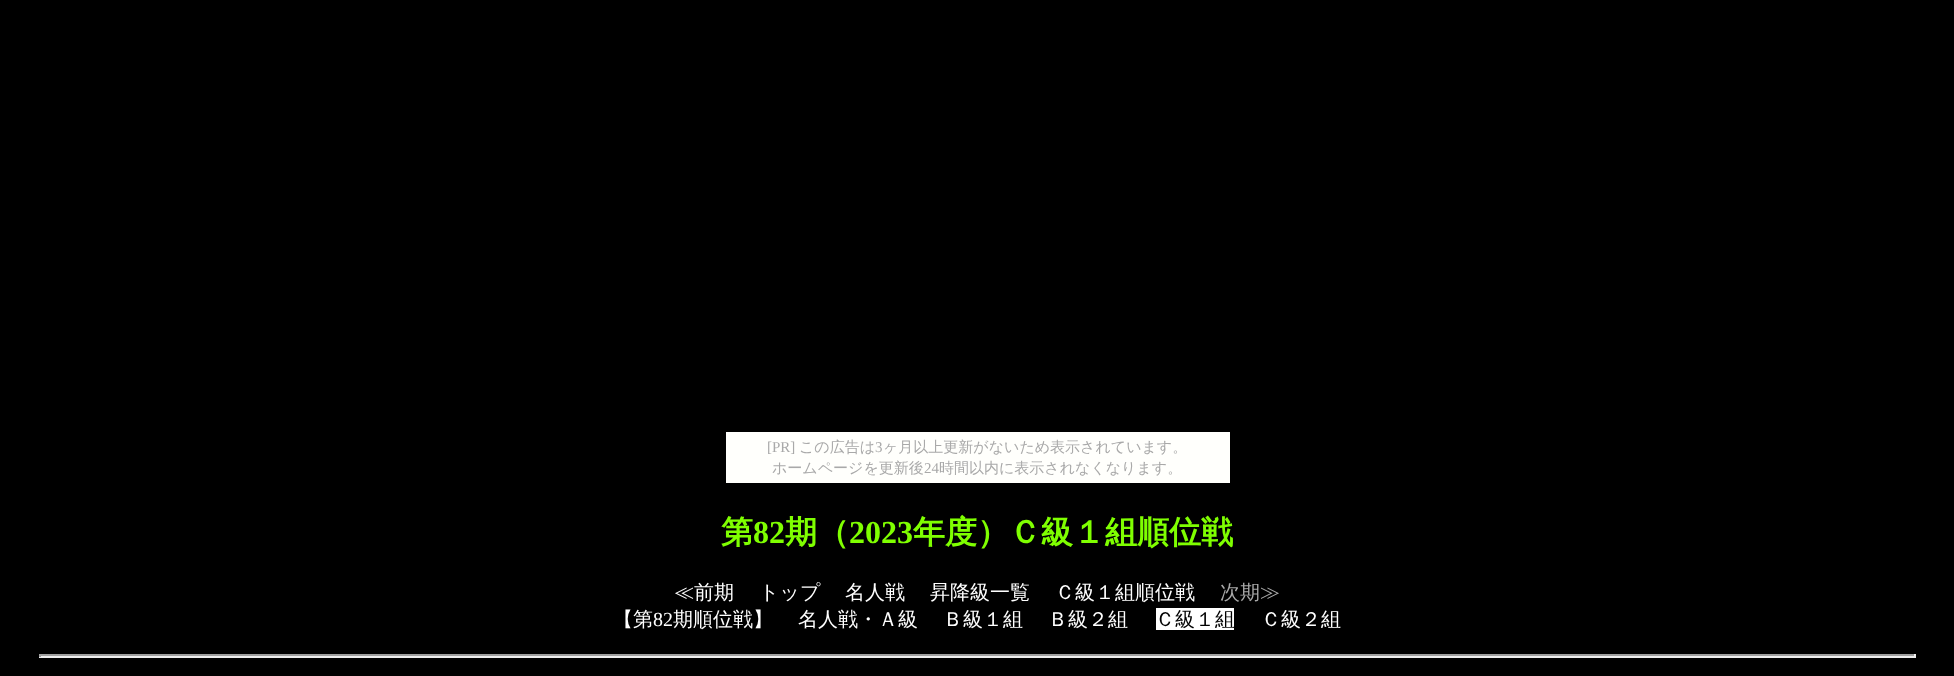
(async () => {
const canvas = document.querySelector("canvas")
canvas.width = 1954
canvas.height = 676
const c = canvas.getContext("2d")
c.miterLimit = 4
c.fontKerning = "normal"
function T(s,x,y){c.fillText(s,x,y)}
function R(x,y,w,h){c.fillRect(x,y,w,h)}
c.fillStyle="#000"
R(0,0,1954,676)
c.fillStyle="#fffffc"
R(726,432,504,51)
c.font="15px Liberation Serif"
c.fillStyle="#a9a9a9"
T("[PR]",767,452)
c.font="500 15px WenQuanYi Zen Hei"
T("この広告は",799,452)
c.font="15px Liberation Serif"
T("3",875,452)
c.font="500 15px WenQuanYi Zen Hei"
T("ヶ月以上更新がないため表示されています。",883,452)
T("ホームページを更新後",772,473)
c.font="15px Liberation Serif"
T("24",924,473)
c.font="500 15px WenQuanYi Zen Hei"
T("時間以内に表示されなくなります。",939,473)
c.font="bold 32px WenQuanYi Zen Hei"
c.fillStyle="#7fff00"
T("第",721,543)
c.font="bold 32px Liberation Serif"
T("82",753,543)
c.font="bold 32px WenQuanYi Zen Hei"
T("期（",785,543)
c.font="bold 32px Liberation Serif"
T("2023",849,543)
c.font="bold 32px WenQuanYi Zen Hei"
T("年度）Ｃ級１組順位戦",913,543)
c.font="500 20px WenQuanYi Zen Hei"
c.fillStyle="#fff"
T("≪前期",674,599)
T("トップ",759,599)
T("名人戦",845,599)
T("昇降級一覧",930,599)
T("Ｃ級１組順位戦",1055,599)
c.fillStyle="#a9a9a9"
T("次期≫",1220,599)
c.fillStyle="#fff"
T("【第",613,626)
c.font="20px Liberation Serif"
T("82",653,626)
c.font="500 20px WenQuanYi Zen Hei"
T("期順位戦】",673,626)
T("名人戦・Ａ級",798,626)
T("Ｂ級１組",943,626)
T("Ｂ級２組",1048,626)
R(1156,608,78,22)
c.fillStyle="#000"
T("Ｃ級１組",1155,626)
c.fillStyle="#fff"
T("Ｃ級２組",1261,626)
c.fillStyle="#9f9f9f"
R(39,654,1877,2)
c.fillStyle="#eee"
R(1914,654,2,3)
R(39,656,1877,2)
c.fillStyle="#9f9f9f"
R(39,654,2,3)
})()
